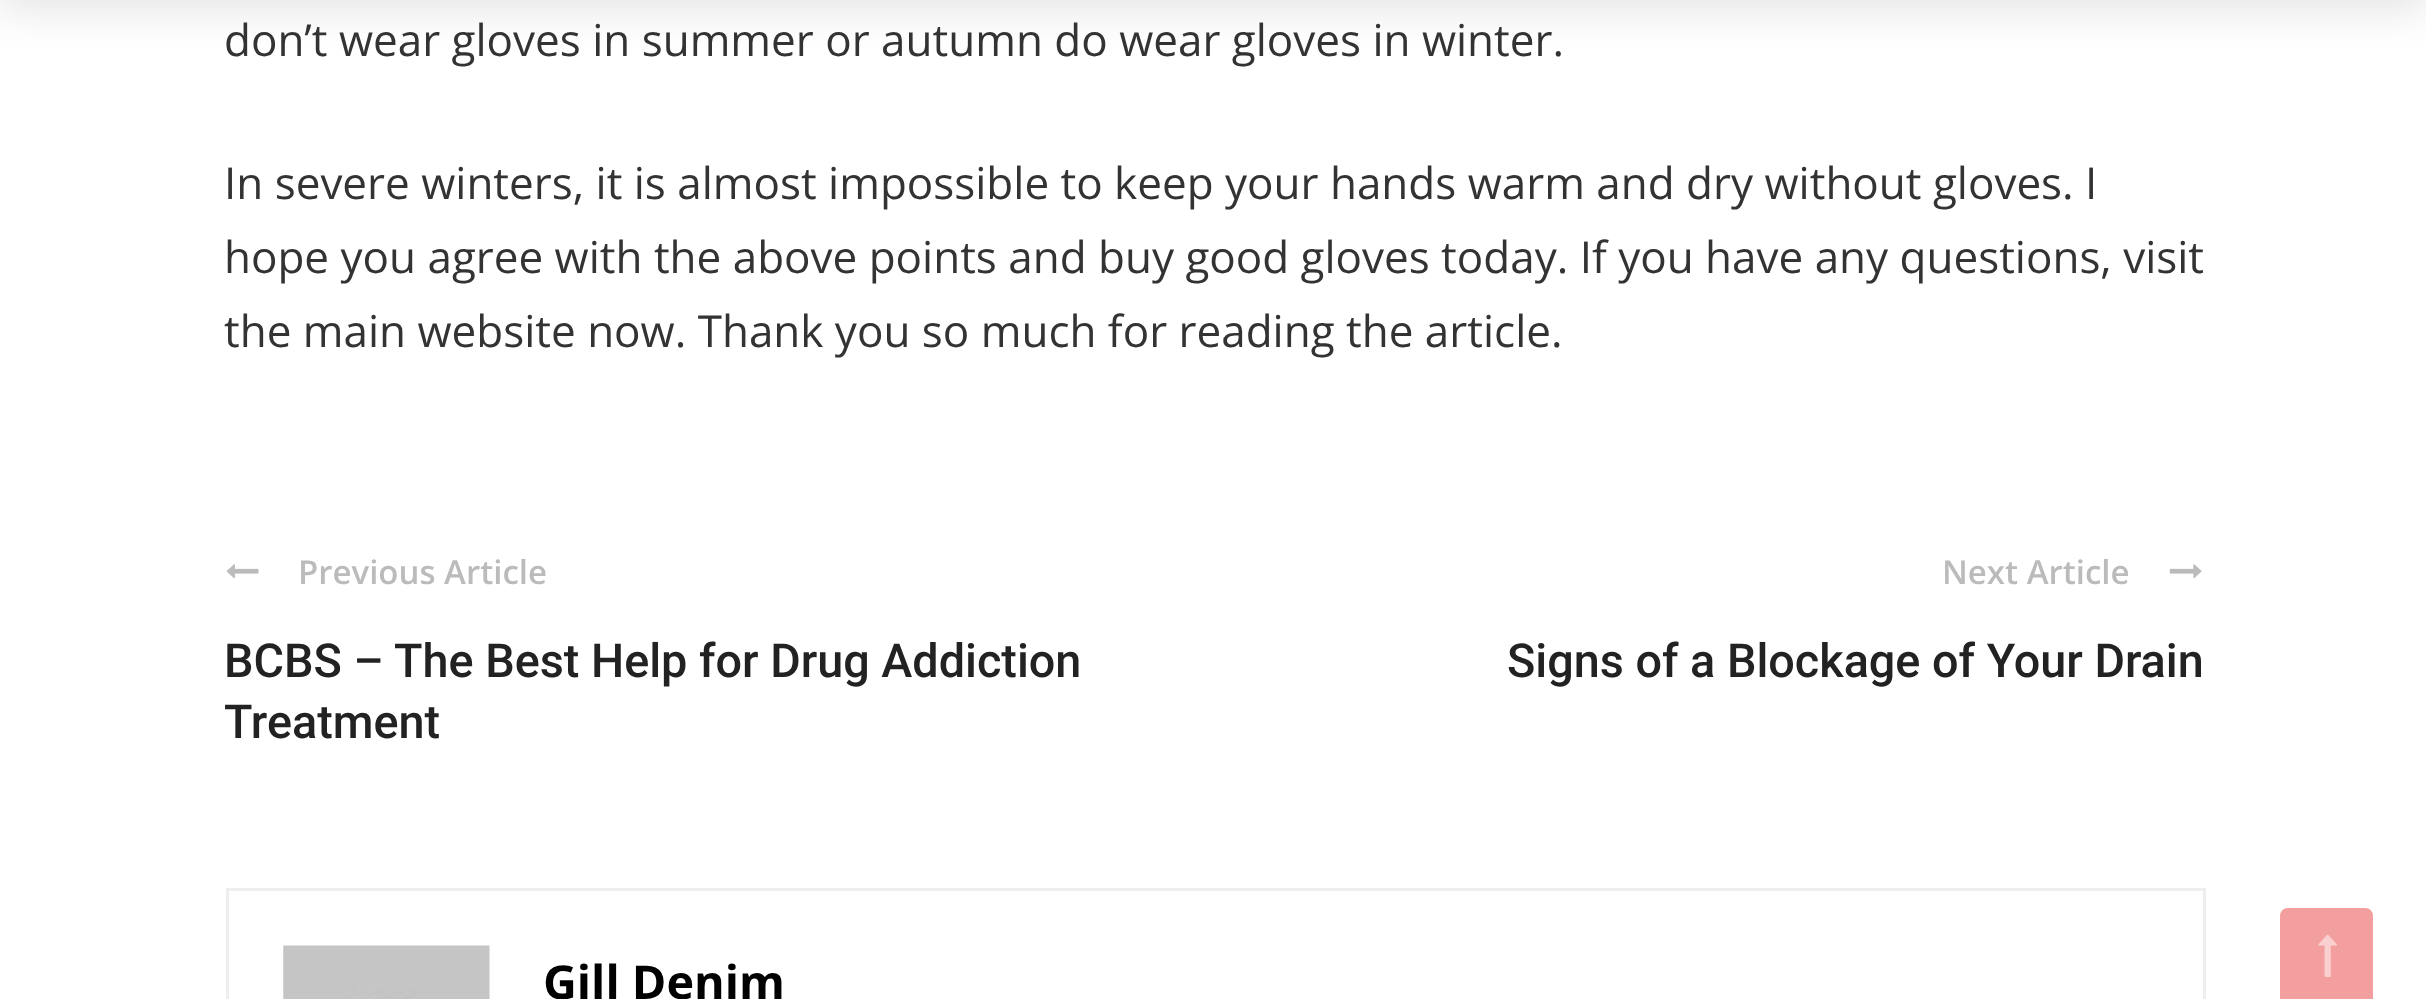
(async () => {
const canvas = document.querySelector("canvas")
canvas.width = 2426
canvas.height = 999
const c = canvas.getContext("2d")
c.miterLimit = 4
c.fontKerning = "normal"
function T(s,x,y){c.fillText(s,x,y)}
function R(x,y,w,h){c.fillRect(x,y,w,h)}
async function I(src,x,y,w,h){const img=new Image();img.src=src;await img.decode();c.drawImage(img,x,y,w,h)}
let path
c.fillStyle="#fff"
R(0,0,2426,999)
c.fillStyle="#0000001a"
c.filter="blur(20.5px)"
c.beginPath()
c.rect(0,-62,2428,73)
c.fill()
c.filter="none"
c.font="44px Open Sans"
c.fillStyle="#333"
T("don’t wear gloves in summer or autumn do wear gloves in winter.",224,56)
T("In severe winters, it is almost impossible to keep your hands warm and dry without gloves. I",224,199)
T("hope you agree with the above points and buy good gloves today. If you have any questions, visit",224,273)
T("the main website now. Thank you so much for reading the article.",224,347)
await I("1.png",226,564,33,15)
c.font="600 33px Open Sans"
c.fillStyle="#bbb"
T("Previous Article",298,584)
c.font="500 46.75px Roboto"
c.fillStyle="#222"
T("BCBS – The Best Help for Drug Addiction",224,677)
T("Treatment",224,738)
c.font="600 33px Open Sans"
c.fillStyle="#bbb"
T("Next Article",1942,584)
await I("2.png",2169,564,33,15)
c.font="500 46.75px Roboto"
c.fillStyle="#222"
T("Signs of a Blockage of Your Drain",1507,677)
c.strokeStyle="#eee"
c.lineWidth=3
c.strokeRect(227.5,889.5,1977,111)
await I("3.png",283,945,207,54)
c.font="bold 46.75px Open Sans"
c.fillStyle="#000"
T("Gill Denim",543,999)
c.fillStyle="#f49f9f"
path = new Path2D("M2288 908h77c4.5 0 8 3.5 8 8v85h-93v-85c0-4.5 3.5-8 8-8z")
c.fill(path)
await I("4.png",2318,934,19,43)
})()
